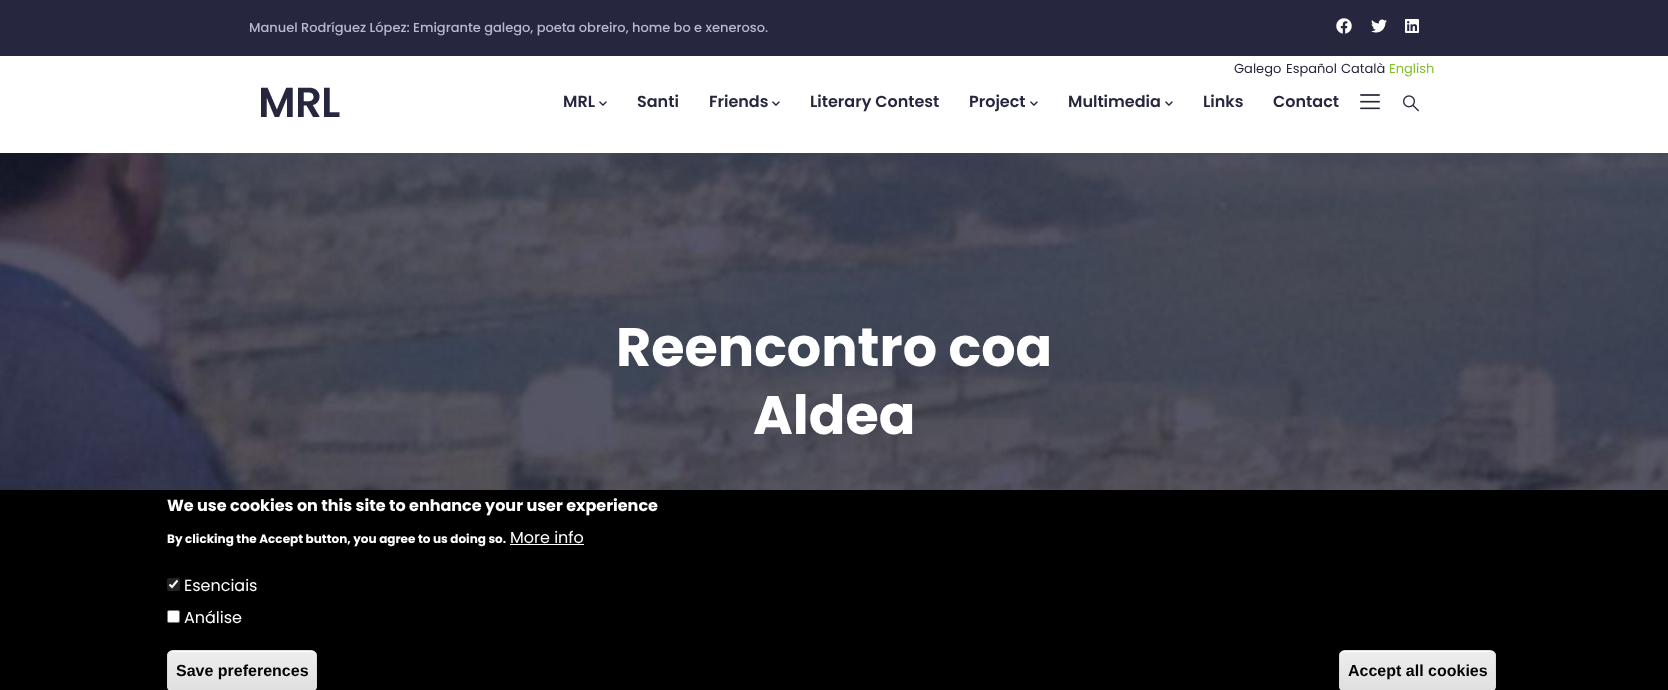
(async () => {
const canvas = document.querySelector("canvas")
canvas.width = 1668
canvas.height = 690
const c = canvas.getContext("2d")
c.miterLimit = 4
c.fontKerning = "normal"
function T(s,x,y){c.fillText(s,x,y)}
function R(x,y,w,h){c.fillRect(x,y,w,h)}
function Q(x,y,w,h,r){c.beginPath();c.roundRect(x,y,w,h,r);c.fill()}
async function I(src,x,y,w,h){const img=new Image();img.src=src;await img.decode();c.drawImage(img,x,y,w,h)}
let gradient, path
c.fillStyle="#fff"
R(0,0,1668,690)
c.fillStyle="#26263e"
R(0,0,1668,56)
c.font="500 13px Poppins"
c.fillStyle="#b8b8d3"
T("Manuel Rodríguez López: Emigrante galego, poeta obreiro, home bo e xeneroso.",249,32)
await I("1.png",1336,18,16,16)
await I("2.png",1371,19,16,14)
await I("3.png",1405,19,14,14)
await I("4.png",261,87,79,30)
c.font="13px Poppins"
c.fillStyle="#26263e"
T("Galego",1234,73)
T("Español",1286,73)
T("Català",1341,73)
c.fillStyle="#7dc22b"
T("English",1389,73)
c.font="600 16px Poppins"
c.fillStyle="#26263e"
T("MRL",563,107)
await I("5.png",599,101,8,5)
T("Santi",637,107)
T("Friends",709,107)
await I("5.png",772,101,8,5)
T("Literary Contest",810,107)
T("Project",969,107)
await I("5.png",1030,101,8,5)
T("Multimedia",1068,107)
await I("5.png",1165,101,8,5)
T("Links",1203,107)
T("Contact",1273,107)
await I("6.png",1360,94,20,16)
await I("7.png",1403,95,16,17)
await I("8.png",0,153,1668,337)
c.font="bold 54px Poppins"
c.fillStyle="#fff"
T("Reencontro coa",616,366)
T("Aldea",753,434)
c.fillStyle="#000"
R(0,490,1668,200)
c.font="bold 16px Poppins"
c.fillStyle="#fff"
T("We use cookies on this site to enhance your user experience",167,511)
c.font="bold 12px Poppins"
T("By clicking the Accept button, you agree to us doing so.",167,543)
c.font="16px Poppins"
T("More info",510,543)
R(510,544,74,1)
c.fillStyle="#232323"
Q(167,578,13,13,2)
path = new Path2D("M169.5 584.5l2.5 2.5l5.5-6.5")
c.strokeStyle="#fff"
c.lineWidth=2.1
c.stroke(path)
c.fillStyle="#fff"
T("Esenciais",184,591)
c.beginPath()
c.roundRect(167.5,610.5,12,12,1.5)
c.fill()
c.strokeStyle="#767676"
c.lineWidth=1
c.stroke()
T("Análise",184,623)
c.save()
c.beginPath()
c.roundRect(167,650,150,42,6)
c.clip()
gradient = c.createLinearGradient(242,651,242,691)
gradient.addColorStop(.05,"#ededed")
gradient.addColorStop(1,"#dfdfdf")
c.fillStyle = gradient
R(167,651,150,39)
c.restore()
path = new Path2D("M173 652h138c3 0 5 2 5 5v-1c0-3-2-5-5-5h-138c-3 0-5 2-5 5v1c0-3 2-5 5-5z")
c.fill(path)
c.beginPath()
c.roundRect(167.5,650.5,149,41,5.5)
c.strokeStyle="#dcdcdc"
c.stroke()
c.font="bold 16px Liberation Sans"
c.fillStyle="#000"
T("Save preferences",176,676)
c.save()
c.beginPath()
c.roundRect(1339,650,157,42,6)
c.clip()
gradient = c.createLinearGradient(1418,651,1418,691)
gradient.addColorStop(.05,"#ededed")
gradient.addColorStop(1,"#dfdfdf")
c.fillStyle = gradient
R(1339,651,157,39)
c.restore()
c.fillStyle="#fff"
path = new Path2D("M1345 652h145c3 0 5 2 5 5v-1c0-3-2-5-5-5h-145c-3 0-5 2-5 5v1c0-3 2-5 5-5z")
c.fill(path)
c.beginPath()
c.roundRect(1339.5,650.5,156,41,5.5)
c.stroke()
c.fillStyle="#000"
T("Accept all cookies",1348,676)
})()
